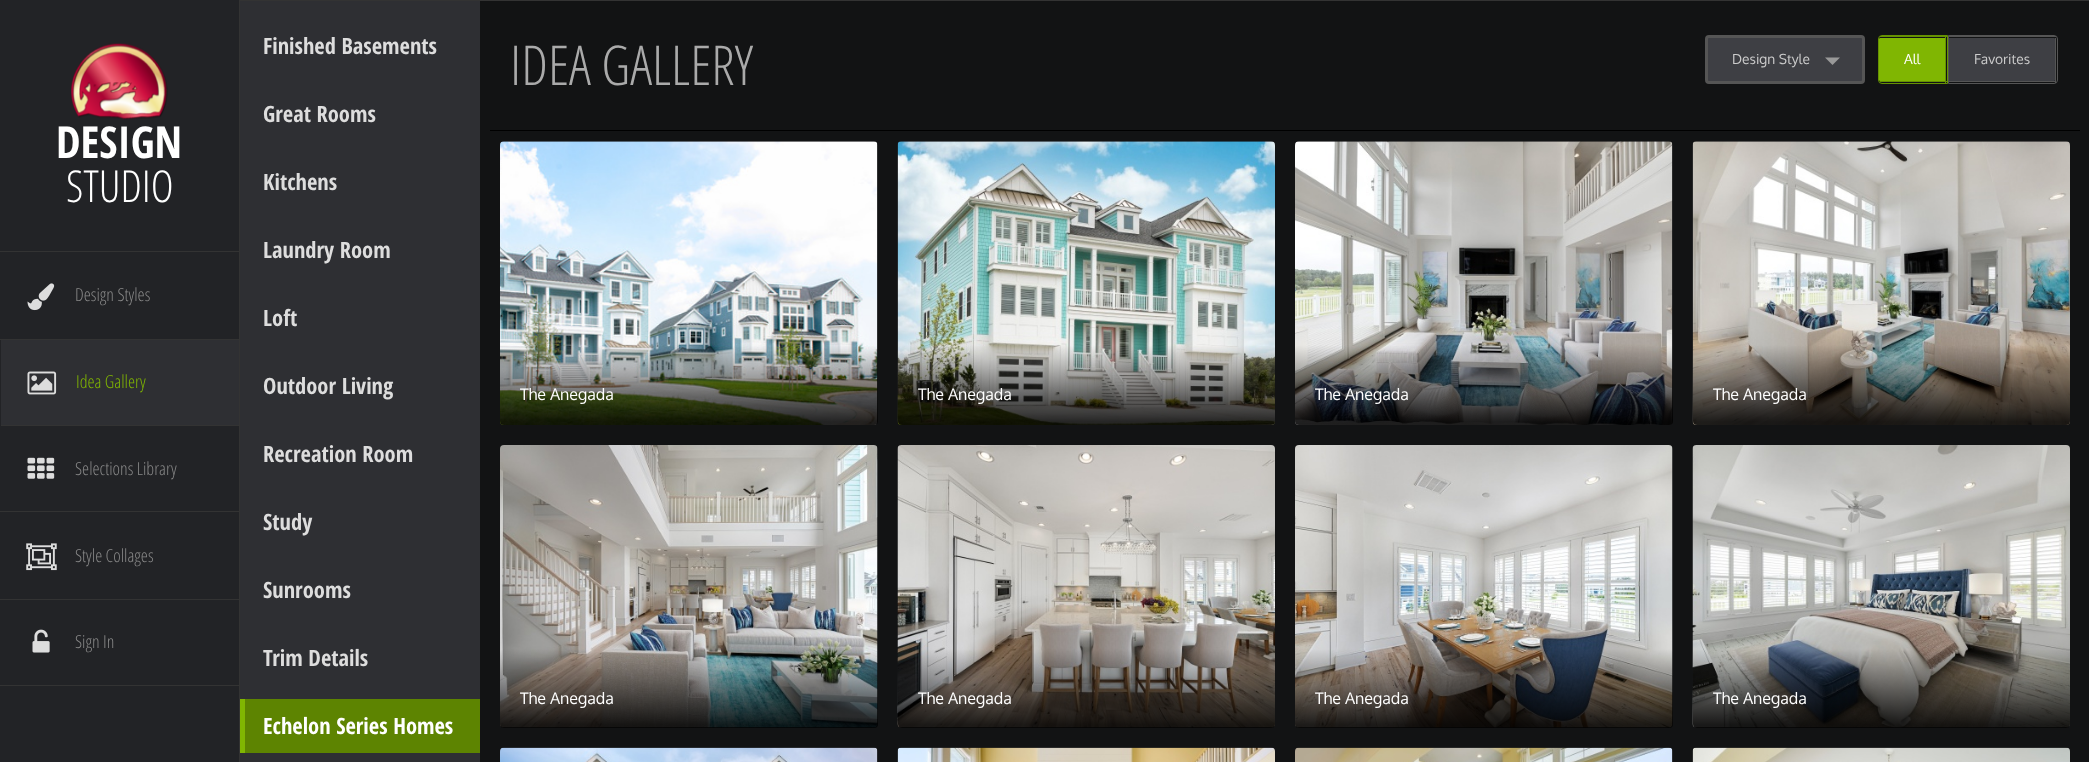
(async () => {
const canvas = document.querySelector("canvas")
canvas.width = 2089
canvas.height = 762
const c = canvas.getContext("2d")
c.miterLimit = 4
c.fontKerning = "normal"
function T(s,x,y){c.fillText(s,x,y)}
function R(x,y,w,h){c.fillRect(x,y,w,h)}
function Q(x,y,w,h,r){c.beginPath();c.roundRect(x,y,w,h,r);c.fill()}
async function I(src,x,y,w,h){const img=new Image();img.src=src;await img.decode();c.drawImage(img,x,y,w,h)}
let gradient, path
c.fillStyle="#121314"
R(0,0,2089,762)
c.fillStyle="#222326"
R(0,0,239,762)
c.fillStyle="#333"
R(239,0,1,762)
R(0,251,239,1)
await I("1.png",71,43,97,77)
c.font="bold 44px Open Sans Condensed"
c.fillStyle="#fff"
T("DESIGN",56,158)
c.font="300 44px Open Sans Condensed"
T("STUDIO",66,202)
c.fillStyle="#333"
R(0,339,239,1)
await I("2.png",27,283,28,28)
c.font="300 18px Open Sans Condensed"
c.fillStyle="#888"
T("Design Styles",75,301)
c.fillStyle="#2e2f33"
R(1,340,238,85)
c.fillStyle="#333"
R(1,425,238,1)
await I("3.png",27,371,30,24)
c.fillStyle="#80b602"
T("Idea Gallery",76,388)
c.fillStyle="#333"
R(0,511,239,1)
await I("4.png",27,457,28,22)
c.fillStyle="#888"
T("Selections Library",75,475)
c.fillStyle="#333"
R(0,599,239,1)
await I("5.png",26,543,31,28)
c.fillStyle="#888"
T("Style Collages",75,562)
c.fillStyle="#333"
R(0,685,239,1)
await I("6.png",32,629,18,24)
c.fillStyle="#888"
T("Sign In",75,648)
c.fillStyle="#2e2f33"
R(240,1,240,761)
c.fillStyle="#333"
R(240,0,1849,1)
c.font="bold 22.5px Open Sans Condensed"
c.fillStyle="#ddd"
T("Finished Basements",263,54)
T("Great Rooms",263,122)
T("Kitchens",263,190)
T("Laundry Room",263,258)
T("Loft",263,326)
T("Outdoor Living",263,394)
T("Recreation Room",263,462)
T("Study",263,530)
T("Sunrooms",263,598)
T("Trim Details",263,666)
c.fillStyle="#5d8401"
R(245,699,235,54)
c.fillStyle="#80b602"
R(240,699,5,54)
c.fillStyle="#fff"
T("Echelon Series Homes",263,734)
c.fillStyle="#000"
R(490,130,1590,1)
c.font="300 55px Open Sans Condensed"
c.fillStyle="#aaa"
T("IDEA GALLERY",510,85)
c.fillStyle="#3e3f44"
c.beginPath()
c.roundRect(1706.5,36.5,157,46,2.5)
c.fill()
c.strokeStyle="#555"
c.lineWidth=3
c.stroke()
c.font="13.75px Oxygen"
c.fillStyle="#ccc"
T("Design Style",1732,64)
c.fillStyle="#999"
path = new Path2D("M1825 57.5h15l-7.5 7.5z")
c.fill(path)
c.fillStyle="#80b602"
path = new Path2D("M1881 38h64v43h-64c-1 0-2 0-2-1v-41c0-1 1-1 2-1z")
c.fill(path)
c.beginPath()
c.roundRect(1878.5,35.5,69,48,[3.5,0,0,3.5])
c.strokeStyle="#669202"
c.lineWidth=1
c.stroke()
c.fillStyle="#669202"
R(1880,36,68,1)
R(1945,35,1,49)
R(1880,81,68,1)
c.fillStyle="#fff"
T("All",1904,64)
c.fillStyle="#3e3f44"
c.beginPath()
c.roundRect(1949,38,106,43,[0,1,1,0])
c.fill()
c.beginPath()
c.roundRect(1948.5,35.5,109,48,[0,3.5,3.5,0])
c.strokeStyle="#555"
c.stroke()
c.fillStyle="#555"
R(1948,36,108,1)
R(2055,38,1,45)
R(1948,81,108,1)
c.fillStyle="#ccc"
T("Favorites",1974,64)
await I("7.png",500,141,378,284)
gradient = c.createLinearGradient(689,345,689,425)
gradient.addColorStop(0,"#00000000")
gradient.addColorStop(.96,"#000000d9")
gradient.addColorStop(1,"#000000d9")
c.fillStyle = gradient
Q(500,345,378,80,4)
c.font="16px Oxygen"
c.fillStyle="#fff"
T("The Anegada",520,400)
await I("8.png",897,141,378,284)
gradient = c.createLinearGradient(1086,345,1086,425)
gradient.addColorStop(0,"#00000000")
gradient.addColorStop(.96,"#000000d9")
gradient.addColorStop(1,"#000000d9")
c.fillStyle = gradient
Q(898,345,377,80,4)
c.fillStyle="#fff"
T("The Anegada",918,400)
await I("9.png",1295,141,378,284)
gradient = c.createLinearGradient(1484,345,1484,425)
gradient.addColorStop(0,"#00000000")
gradient.addColorStop(.96,"#000000d9")
gradient.addColorStop(1,"#000000d9")
c.fillStyle = gradient
Q(1295,345,378,80,4)
c.fillStyle="#fff"
T("The Anegada",1315,400)
await I("10.png",1692,141,378,284)
gradient = c.createLinearGradient(1881,345,1881,425)
gradient.addColorStop(0,"#00000000")
gradient.addColorStop(.96,"#000000d9")
gradient.addColorStop(1,"#000000d9")
c.fillStyle = gradient
Q(1693,345,377,80,4)
c.fillStyle="#fff"
T("The Anegada",1713,400)
await I("11.png",500,445,378,283)
gradient = c.createLinearGradient(689,649,689,728)
gradient.addColorStop(0,"#00000000")
gradient.addColorStop(.96,"#000000d9")
gradient.addColorStop(1,"#000000d9")
c.fillStyle = gradient
Q(500,649,378,79,4)
c.fillStyle="#fff"
T("The Anegada",520,704)
await I("12.png",897,445,378,283)
gradient = c.createLinearGradient(1086,649,1086,728)
gradient.addColorStop(0,"#00000000")
gradient.addColorStop(.96,"#000000d9")
gradient.addColorStop(1,"#000000d9")
c.fillStyle = gradient
Q(898,649,377,79,4)
c.fillStyle="#fff"
T("The Anegada",918,704)
await I("13.png",1295,445,378,283)
gradient = c.createLinearGradient(1484,649,1484,728)
gradient.addColorStop(0,"#00000000")
gradient.addColorStop(.96,"#000000d9")
gradient.addColorStop(1,"#000000d9")
c.fillStyle = gradient
Q(1295,649,378,79,4)
c.fillStyle="#fff"
T("The Anegada",1315,704)
await I("14.png",1692,445,378,283)
gradient = c.createLinearGradient(1881,649,1881,728)
gradient.addColorStop(0,"#00000000")
gradient.addColorStop(.96,"#000000d9")
gradient.addColorStop(1,"#000000d9")
c.fillStyle = gradient
Q(1693,649,377,79,4)
c.fillStyle="#fff"
T("The Anegada",1713,704)
await I("15.png",500,747,378,15)
await I("16.png",897,747,378,15)
await I("17.png",1295,747,378,15)
await I("18.png",1692,747,378,15)
})()
